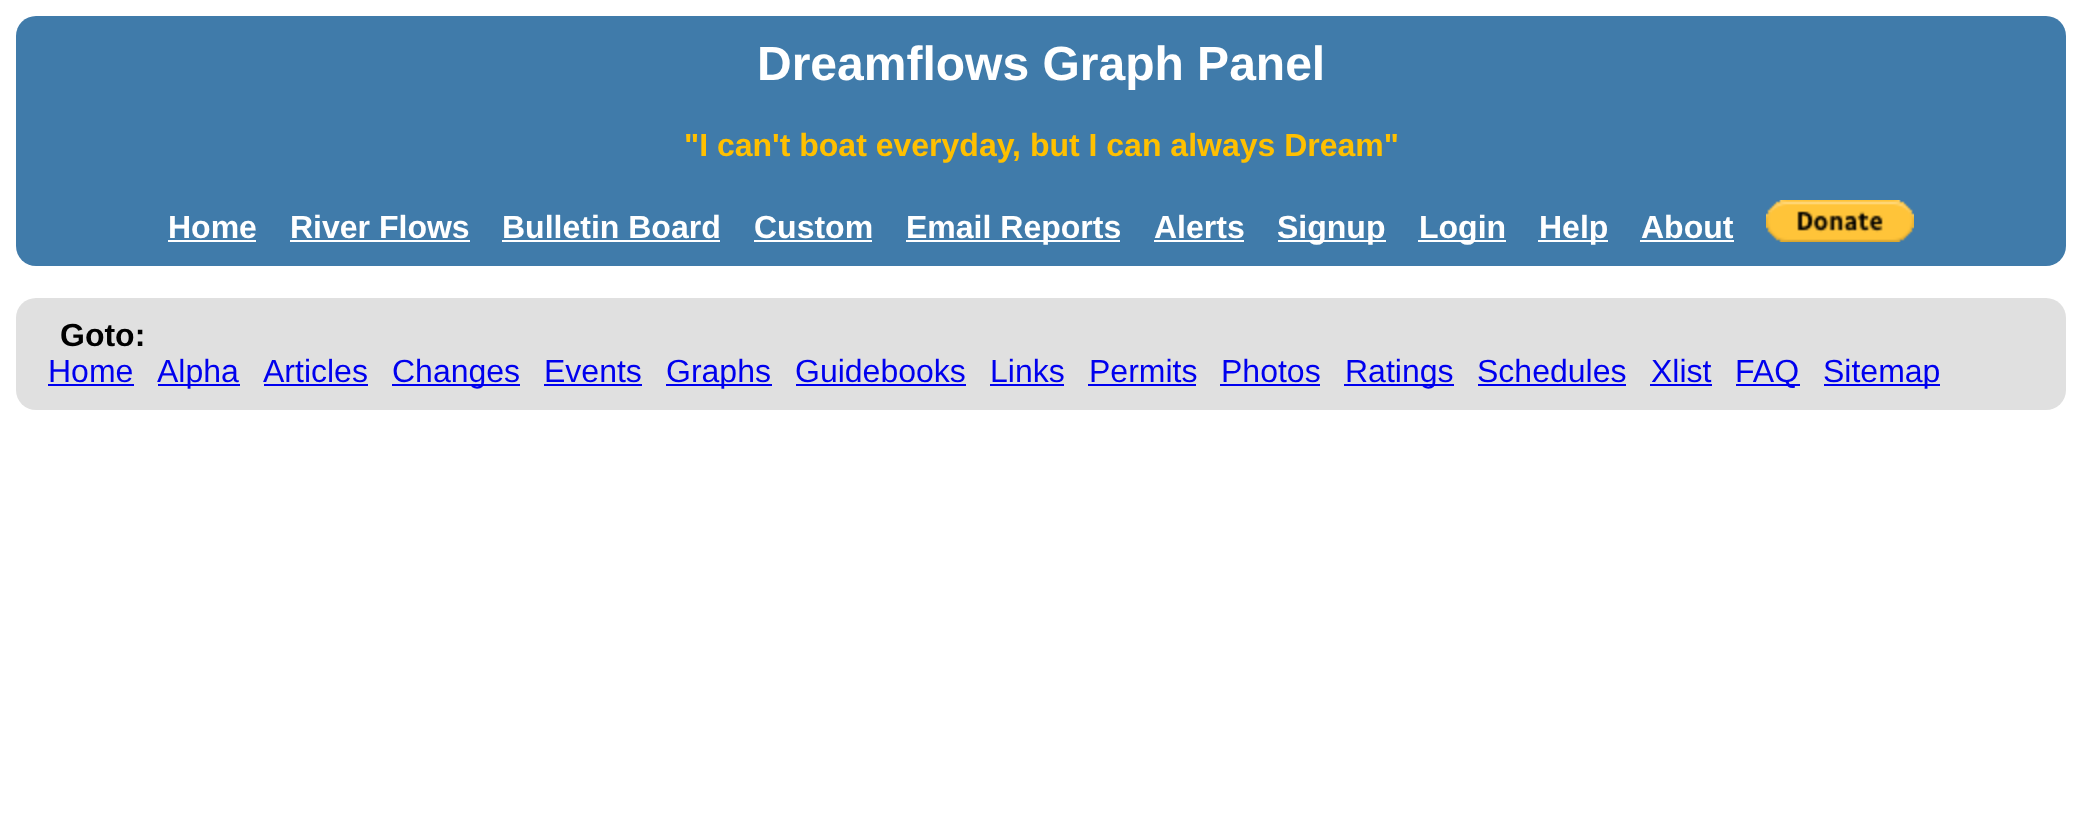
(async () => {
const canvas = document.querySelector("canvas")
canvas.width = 2081
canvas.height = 817
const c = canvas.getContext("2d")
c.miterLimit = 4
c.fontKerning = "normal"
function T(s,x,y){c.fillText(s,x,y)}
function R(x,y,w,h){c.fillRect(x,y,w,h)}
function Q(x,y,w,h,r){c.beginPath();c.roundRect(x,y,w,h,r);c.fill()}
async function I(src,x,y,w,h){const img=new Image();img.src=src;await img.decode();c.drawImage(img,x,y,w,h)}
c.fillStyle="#fff"
R(0,0,2081,817)
c.fillStyle="#407baa"
Q(16,16,2050,250,20)
c.font="bold 48px Liberation Sans"
c.fillStyle="#fff"
T("Dreamflows Graph Panel",757,80)
c.font="bold 32px Liberation Sans"
c.fillStyle="#ffc000"
T("\"I can't boat everyday, but I can always Dream\"",684,156)
c.fillStyle="#fff"
T("Home",168,238)
R(168,240,88,2)
T("River Flows",290,238)
R(290,240,180,2)
T("Bulletin Board",502,238)
R(502,240,218,2)
T("Custom",754,238)
R(754,240,118,2)
R(906,240,214,2)
T("Email Reports",906,238)
T("Alerts",1154,238)
R(1154,240,90,2)
R(1278,240,108,2)
T("Signup",1277,238)
R(1418,240,88,2)
T("Login",1419,238)
R(1538,240,70,2)
T("Help",1539,238)
T("About",1641,238)
R(1640,240,94,2)
await I("1.png",1766,200,148,42)
c.fillStyle="#e0e0e0"
Q(16,298,2050,112,20)
c.fillStyle="#000"
T("Goto:",60,346)
c.font="32px Liberation Sans"
c.fillStyle="#00e"
T("Home",48,382)
R(48,384,86,2)
R(158,384,82,2)
T("Alpha",157,382)
T("Articles",263,382)
R(264,384,104,2)
R(392,384,128,2)
T("Changes",392,382)
T("Events",544,382)
R(544,384,98,2)
R(666,384,106,2)
T("Graphs",666,382)
T("Guidebooks",795,382)
R(796,384,170,2)
T("Links",990,382)
R(990,384,74,2)
T("Permits",1089,382)
R(1088,384,108,2)
T("Photos",1221,382)
R(1220,384,100,2)
R(1344,384,110,2)
T("Ratings",1345,382)
T("Schedules",1477,382)
R(1478,384,148,2)
T("Xlist",1651,382)
R(1650,384,62,2)
R(1736,384,64,2)
T("FAQ",1735,382)
R(1824,384,116,2)
T("Sitemap",1823,382)
})()
